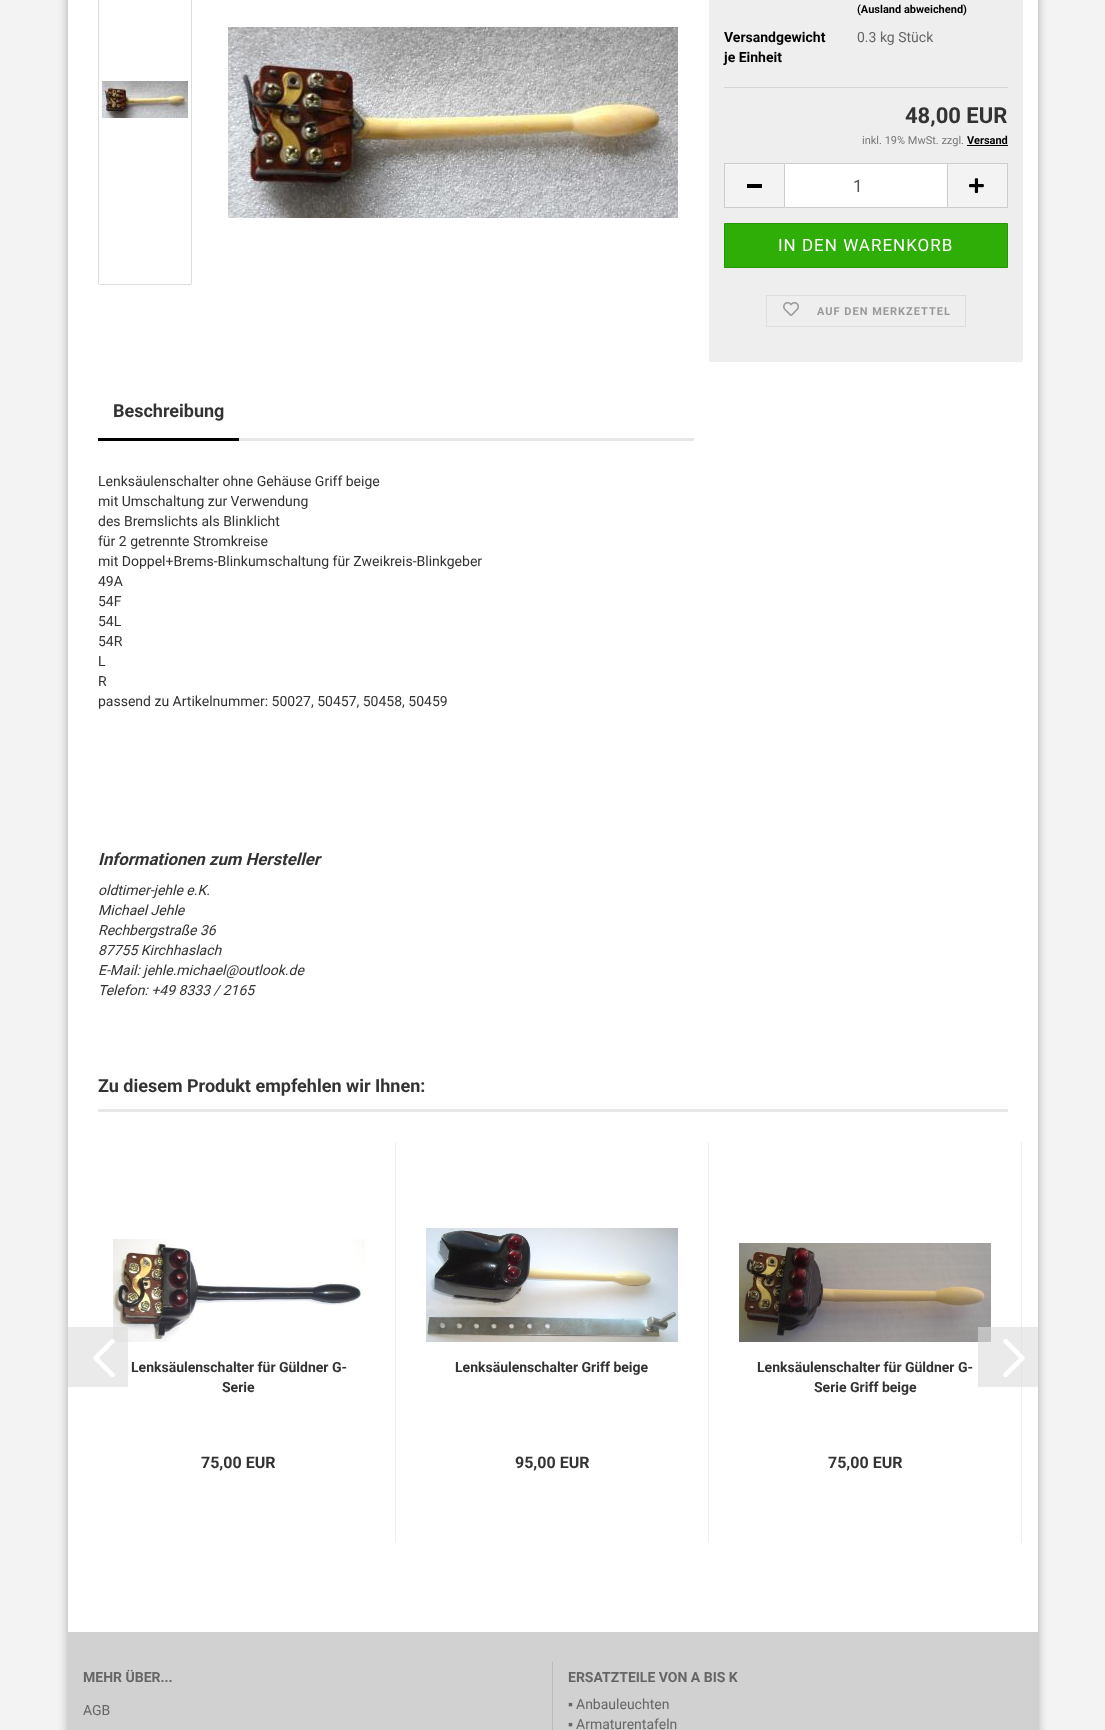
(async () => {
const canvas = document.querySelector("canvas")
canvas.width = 1105
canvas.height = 1730
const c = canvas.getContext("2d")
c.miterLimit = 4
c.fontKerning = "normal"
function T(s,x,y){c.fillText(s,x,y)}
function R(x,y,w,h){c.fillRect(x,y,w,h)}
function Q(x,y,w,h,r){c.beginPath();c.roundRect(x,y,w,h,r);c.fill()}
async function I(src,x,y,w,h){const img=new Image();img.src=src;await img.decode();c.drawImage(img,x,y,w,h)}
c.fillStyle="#f3f3f3"
R(0,0,1105,1730)
c.fillStyle="#0000004d"
c.filter="blur(5px)"
c.beginPath()
c.roundRect(68,-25,970,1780,10)
c.fill()
c.filter="none"
c.fillStyle="#fff"
R(68,0,970,1632)
c.beginPath()
c.roundRect(98.5,-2.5,93,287,1.5)
c.strokeStyle="#ddd"
c.stroke()
await I("1.png",102,81,86,37)
await I("2.png",228,27,450,191)
c.fillStyle="#eee"
Q(709,-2,314,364,2)
c.fillStyle="#d5d5d5"
R(724,87,284,1)
c.font="bold 11px Roboto"
c.fillStyle="#000"
T("(Ausland abweichend)",857,13)
c.font="bold 14px Roboto"
T("Versandgewicht",724,42)
T("je Einheit",724,62)
c.font="14px Roboto"
c.fillStyle="#666"
T("0.3 kg Stück",857,42)
c.font="bold 22px Roboto"
c.fillStyle="#333"
T("48,00 EUR",905,123)
c.font="11px Roboto"
c.fillStyle="#777"
T("inkl. 19% MwSt. zzgl.",862,144)
c.font="bold 11px Roboto"
c.fillStyle="#000"
T("Versand",967,144)
R(967,145,41,1)
c.fillStyle="#f3f3f3"
R(725,164,59,43)
c.fillStyle="#ccc"
R(724,163,60,1)
R(724,207,60,1)
R(724,163,1,45)
c.fillStyle="#000"
R(747,184,15,4)
c.fillStyle="#fff"
c.beginPath()
c.rect(784.5,163.5,163,44)
c.fill()
c.strokeStyle="#ccc"
c.stroke()
c.font="17px Roboto"
c.fillStyle="#555"
T("1",853,192)
c.fillStyle="#f3f3f3"
R(948,164,59,43)
c.fillStyle="#ccc"
R(948,163,60,1)
R(1007,163,1,45)
R(948,207,60,1)
await I("3.png",969,178,15,16)
c.fillStyle="#2eae06"
c.beginPath()
c.rect(724.5,223.5,283,44)
c.fill()
c.strokeStyle="#279505"
c.stroke()
c.letterSpacing="1px"
c.fillStyle="#fff"
T("IN DEN WARENKORB",778,251)
c.strokeStyle="#ddd"
c.strokeRect(766.5,295.5,199,31)
await I("4.png",783,302,16,14)
c.font="bold 11px Roboto"
c.fillStyle="#999"
T("AUF DEN MERKZETTEL",817,315)
c.fillStyle="#e7e7e7"
R(239,438,455,3)
c.fillStyle="#000"
R(98,438,141,3)
c.letterSpacing="0px"
c.font="bold 18px Roboto"
c.fillStyle="#333"
T("Beschreibung",113,417)
c.font="14px Roboto"
T("Lenksäulenschalter ohne Gehäuse Griff beige",98,486)
T("mit Umschaltung zur Verwendung",98,506)
T("des Bremslichts als Blinklicht",98,526)
T("für 2 getrennte Stromkreise",98,546)
T("mit Doppel+Brems-Blinkumschaltung für Zweikreis-Blinkgeber",98,566)
T("49A",98,586)
T("54F",98,606)
T("54L",98,626)
T("54R",98,646)
T("L",98,666)
T("R",98,686)
T("passend zu Artikelnummer: 50027, 50457, 50458, 50459",98,706)
c.font="italic bold 16.75px Roboto"
T("Informationen zum Hersteller",98,865)
c.font="italic 14px Roboto"
T("oldtimer-jehle e.K.",98,895)
T("Michael Jehle",98,915)
T("Rechbergstraße 36",98,935)
T("87755 Kirchhaslach",98,955)
T("E-Mail: jehle.michael@outlook.de",98,975)
T("Telefon: +49 8333 / 2165",98,995)
c.fillStyle="#e7e7e7"
R(98,1109,910,3)
c.font="bold 18px Roboto"
c.fillStyle="#333"
T("Zu diesem Produkt empfehlen wir Ihnen:",98,1092)
await I("6.png",113,1239,252,103)
c.fillStyle="#dcdcdc99"
R(68,1327,60,60)
await I("5.png",93,1339,22,38)
c.fillStyle="#eee"
R(395,1142,1,400)
c.font="bold 14px Roboto"
c.fillStyle="#333"
T("Lenksäulenschalter für Güldner G-",131,1372)
T("Serie",222,1392)
c.font="bold 16px Roboto"
T("75,00 EUR",201,1468)
c.fillStyle="#eee"
R(708,1142,1,400)
await I("7.png",426,1228,252,114)
c.font="bold 14px Roboto"
c.fillStyle="#333"
T("Lenksäulenschalter Griff beige",455,1372)
c.font="bold 16px Roboto"
T("95,00 EUR",515,1468)
c.fillStyle="#eee"
R(1021,1142,1,400)
await I("8.png",739,1243,252,99)
c.font="bold 14px Roboto"
c.fillStyle="#333"
T("Lenksäulenschalter für Güldner G-",757,1372)
T("Serie Griff beige",814,1392)
c.font="bold 16px Roboto"
T("75,00 EUR",828,1468)
c.fillStyle="#dcdcdc99"
R(978,1327,60,60)
await I("9.png",1003,1339,22,38)
c.fillStyle="#d1d1d1"
R(68,1632,970,98)
c.fillStyle="#bbb"
R(552,1662,1,68)
c.font="bold 14px Roboto"
c.fillStyle="#666"
T("MEHR ÜBER...",83,1682)
c.font="14px Roboto"
T("AGB",83,1715)
c.font="bold 14px Roboto"
T("ERSATZTEILE VON A BIS K",568,1682)
c.font="14px Liberation Sans"
T("▪",568,1709)
c.font="14px Roboto"
T("Anbauleuchten",576,1709)
c.font="14px Liberation Sans"
T("▪",568,1729)
c.font="14px Roboto"
T("Armaturentafeln",576,1729)
})()
